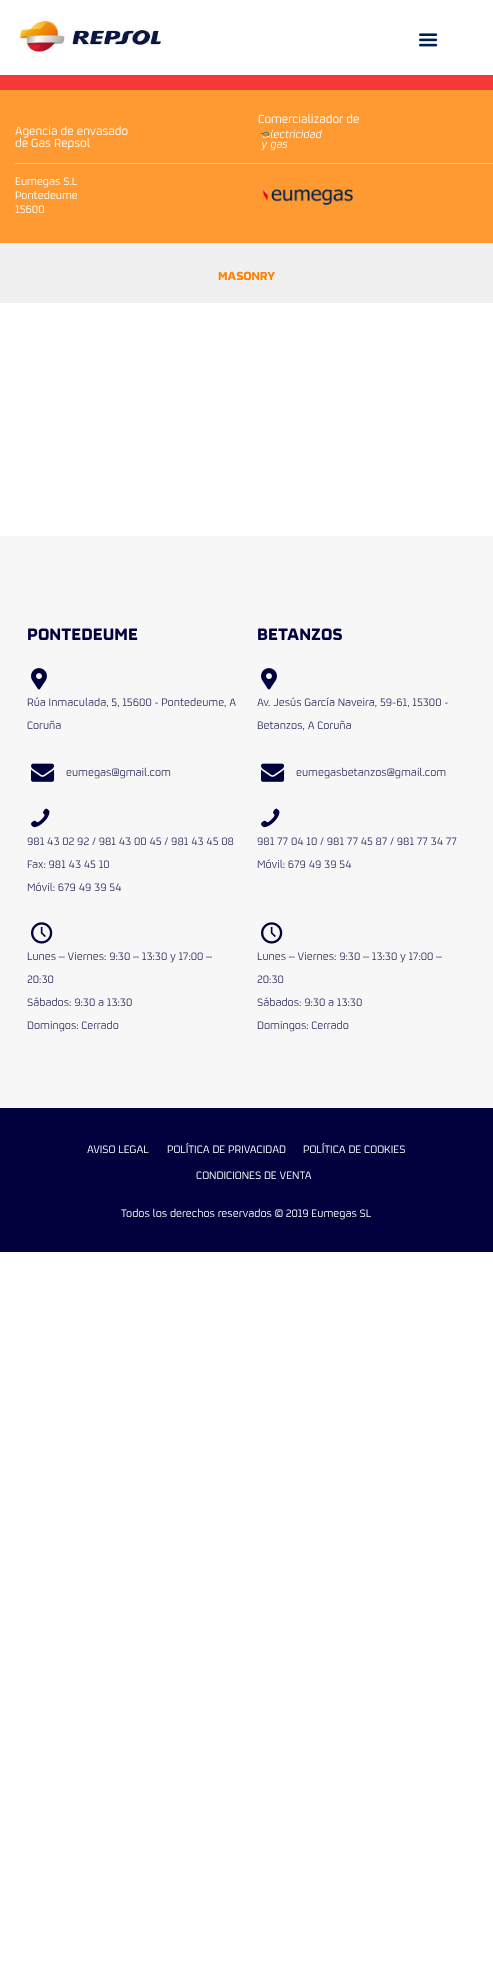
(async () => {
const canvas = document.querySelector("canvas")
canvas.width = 493
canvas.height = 1972
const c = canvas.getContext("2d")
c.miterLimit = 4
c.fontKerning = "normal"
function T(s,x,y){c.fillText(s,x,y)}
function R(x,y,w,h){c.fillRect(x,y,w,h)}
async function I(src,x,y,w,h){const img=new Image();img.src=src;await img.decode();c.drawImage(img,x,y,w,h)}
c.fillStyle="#fff"
R(0,0,493,1972)
await I("1.png",419,33,19,14)
c.fillStyle="#f53838"
R(0,75,493,15)
c.fillStyle="#ff9932"
R(0,90,493,153)
await I("2.png",17,17,147,39)
c.font="13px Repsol"
c.fillStyle="#fff"
T("Comercializador de",258,123)
await I("3.png",261,129,61,22)
T("Agencia de envasado",15,135)
T("de Gas Repsol",15,147)
c.fillStyle="#fbc691"
R(15,163,478,1)
c.font="12px Repsol"
c.fillStyle="#fff"
T("Eumegas S.L",15,185)
T("Pontedeume",15,199)
T("15600",15,213)
await I("4.png",263,189,90,16)
c.fillStyle="#f0f0f0"
R(0,244,493,59)
c.fillStyle="#eee"
R(0,243,493,1)
c.font="bold 13px Repsol"
c.fillStyle="#ff8200"
T("MASONRY",218,280)
c.fillStyle="#f7f7f7"
R(0,536,493,572)
c.font="bold 18.5px Repsol"
c.fillStyle="#00013d"
T("PONTEDEUME",27,640)
await I("5.png",31,668,16,22)
c.font="12px Repsol"
c.fillStyle="#313262"
T("Rúa Inmaculada, 5, 15600 - Pontedeume, A",27,706)
T("Coruña",27,729)
await I("6.png",31,763,24,19)
T("eumegas@gmail.com",66,776)
await I("7.png",31,808,19,20)
T("981 43 02 92 / 981 43 00 45 / 981 43 45 08",27,845)
T("Fax: 981 43 45 10",27,868)
T("Móvil: 679 49 39 54",27,891)
await I("8.png",31,922,22,22)
T("Lunes – Viernes: 9:30 – 13:30 y 17:00 –",27,960)
T("20:30",27,983)
T("Sábados: 9:30 a 13:30",27,1006)
T("Domingos: Cerrado",27,1029)
c.font="bold 18.5px Repsol"
c.fillStyle="#00013d"
T("BETANZOS",257,640)
await I("5.png",261,668,16,22)
c.font="12px Repsol"
c.fillStyle="#313262"
T("Av. Jesús García Naveira, 59-61, 15300 -",257,706)
T("Betanzos, A Coruña",257,729)
await I("6.png",261,763,24,19)
T("eumegasbetanzos@gmail.com",296,776)
await I("7.png",261,808,19,20)
T("981 77 04 10 / 981 77 45 87 / 981 77 34 77",257,845)
T("Móvil: 679 49 39 54",257,868)
await I("8.png",261,922,22,22)
T("Lunes – Viernes: 9:30 – 13:30 y 17:00 –",257,960)
T("20:30",257,983)
T("Sábados: 9:30 a 13:30",257,1006)
T("Domingos: Cerrado",257,1029)
c.fillStyle="#00013d"
R(0,1108,493,144)
c.fillStyle="#fff"
T("AVISO LEGAL",87,1153)
T("POLÍTICA DE PRIVACIDAD",167,1153)
T("POLÍTICA DE COOKIES",303,1153)
T("CONDICIONES DE VENTA",196,1179)
T("Todos los derechos reservados © 2019 Eumegas SL",121,1217)
})()
